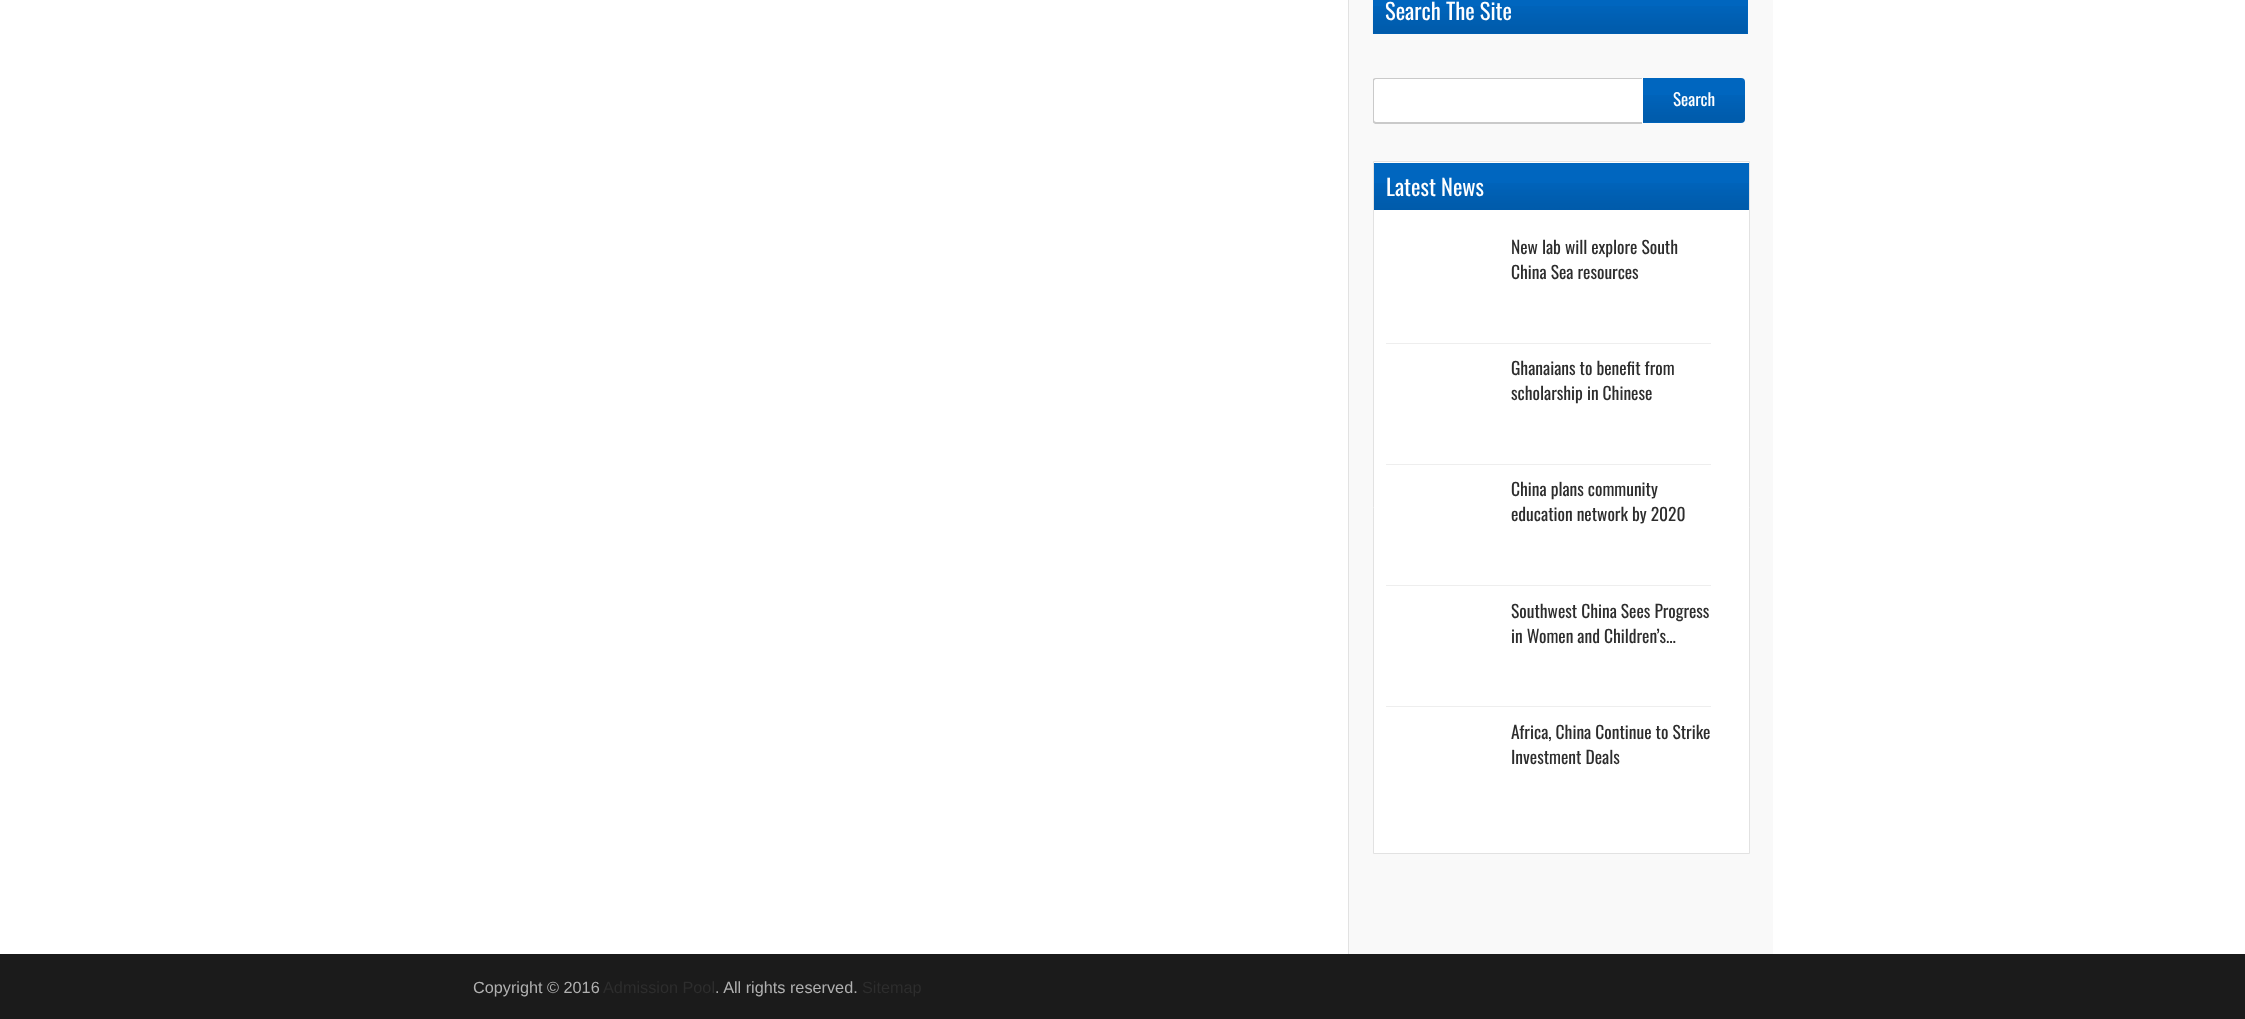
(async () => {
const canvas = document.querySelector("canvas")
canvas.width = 2245
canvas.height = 1019
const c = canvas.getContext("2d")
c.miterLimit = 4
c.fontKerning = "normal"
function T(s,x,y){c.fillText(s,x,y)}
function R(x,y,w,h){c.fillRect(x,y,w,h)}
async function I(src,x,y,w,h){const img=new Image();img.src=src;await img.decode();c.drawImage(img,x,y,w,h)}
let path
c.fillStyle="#fff"
R(0,0,2245,1019)
c.fillStyle="#f9f9f9"
R(1349,0,424,954)
c.fillStyle="#e2e2e2"
R(1348,0,1,954)
c.fillStyle="#0066bf"
R(1373,0,375,34)
await I("1.png",1372,6,376,28)
c.font="22.5px Oswald"
c.fillStyle="#fff"
T("Search The Site",1385,20)
c.beginPath()
c.roundRect(1373,78,270,46,[4,0,0,4])
c.fill()
c.save()
c.beginPath()
c.rect(1373,0,375,124)
c.clip()
c.fillStyle="#cacaca"
path = new Path2D("M1376 78h266v46h-266c-2 0-4-2-4-4v-39c0-2 2-3 4-3zm0 1h266v43h-266c-1 0-2-1-2-2v-39c0-1 1-2 2-2z")
c.fill(path,"evenodd")
c.restore()
c.fillStyle="#0066bf"
c.beginPath()
c.roundRect(1643,78,102,45,[0,4,4,0])
c.fill()
await I("2.png",1643,95,102,28)
c.font="17px Oswald"
c.fillStyle="#fff"
T("Search",1673,106)
c.beginPath()
c.rect(1373.5,161.5,376,692)
c.fill()
c.strokeStyle="#e2e2e2"
c.stroke()
c.fillStyle="#0066bf"
R(1374,163,375,47)
await I("3.png",1374,183,375,27)
c.font="22.5px Oswald"
c.fillStyle="#fff"
T("Latest News",1386,196)
c.fillStyle="#eee"
R(1386,343,325,1)
c.font="17.5px Oswald"
c.fillStyle="#2d2d2d"
T("New lab will explore South",1511,254)
T("China Sea resources",1511,279)
c.fillStyle="#eee"
R(1386,464,325,1)
c.fillStyle="#2d2d2d"
T("Ghanaians to benefit from",1511,375)
T("scholarship in Chinese",1511,400)
c.fillStyle="#eee"
R(1386,585,325,1)
c.fillStyle="#2d2d2d"
T("China plans community",1511,496)
T("education network by 2020",1511,521)
c.fillStyle="#eee"
R(1386,706,325,1)
c.fillStyle="#2d2d2d"
T("Southwest China Sees Progress",1511,618)
T("in Women and Children’s...",1511,643)
T("Africa, China Continue to Strike",1511,739)
T("Investment Deals",1511,764)
c.fillStyle="#1b1b1b"
R(0,954,2245,65)
c.font="16.25px Liberation Sans"
c.fillStyle="#b0b0b0"
T("Copyright © 2016",473,993)
c.fillStyle="#2d2d2d"
T("Admission Pool",603,993)
c.fillStyle="#b0b0b0"
T(". All rights reserved.",715,993)
c.fillStyle="#2d2d2d"
T("Sitemap",862,993)
})()
